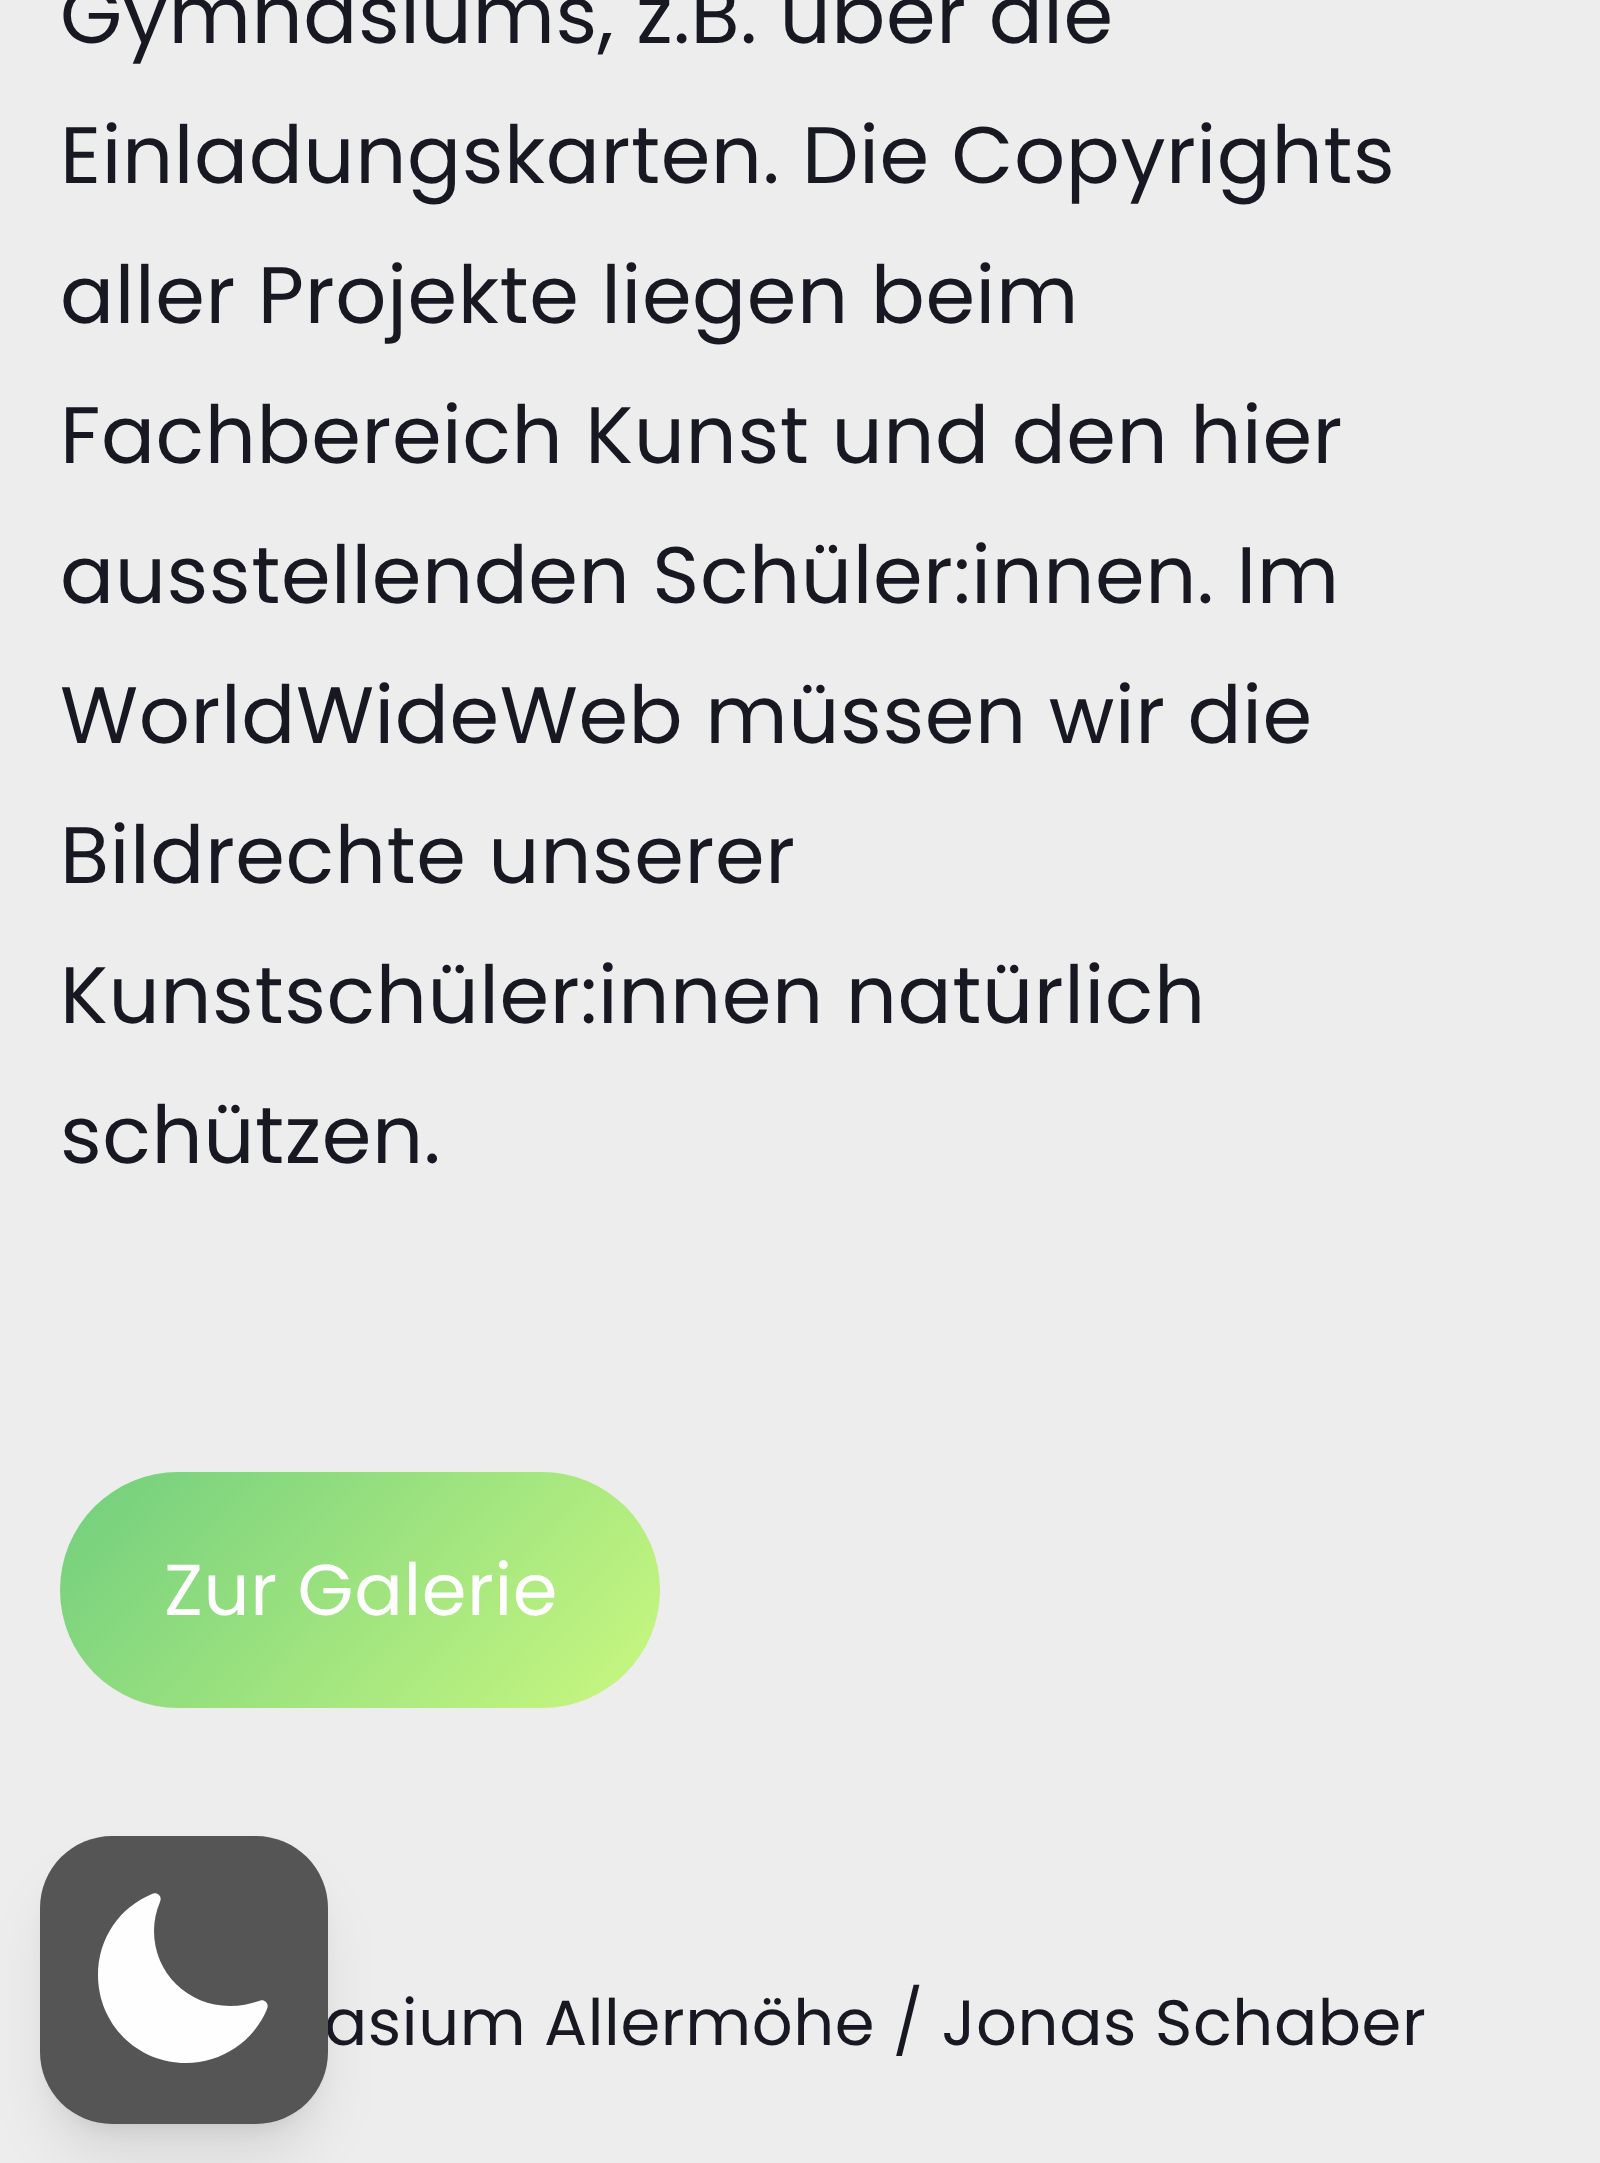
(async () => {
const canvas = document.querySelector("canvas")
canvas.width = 1600
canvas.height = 2163
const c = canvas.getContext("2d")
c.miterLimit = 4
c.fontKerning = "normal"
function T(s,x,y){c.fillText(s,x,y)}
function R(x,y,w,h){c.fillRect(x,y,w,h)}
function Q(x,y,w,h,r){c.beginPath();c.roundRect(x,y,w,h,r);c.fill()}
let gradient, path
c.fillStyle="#ededed"
R(0,0,1600,2163)
c.letterSpacing="0.6px"
c.font="80px Poppins"
c.fillStyle="#171822"
T("Gymnasiums, z.B. über die",60,43)
T("Einladungskarten. Die Copyrights",60,183)
T("aller Projekte liegen beim",60,323)
T("Fachbereich Kunst und den hier",60,463)
T("ausstellenden Schüler:innen. Im",60,603)
T("WorldWideWeb müssen wir die",60,743)
T("Bildrechte unserer",60,883)
T("Kunstschüler:innen natürlich",60,1023)
T("schützen.",60,1163)
gradient = c.createLinearGradient(579,1795,141,1385)
gradient.addColorStop(0,"#caf880")
gradient.addColorStop(1,"#71ce7e")
c.fillStyle = gradient
Q(60,1472,600,236,118)
c.font="72px Poppins"
c.fillStyle="#fff"
T("Zur Galerie",164,1615)
c.fillStyle="#0000001a"
c.filter="blur(12px)"
c.beginPath()
c.roundRect(56,1868,256,256,56)
c.fill()
c.filter="none"
c.filter="blur(30px)"
c.beginPath()
c.roundRect(52,1888,264,264,60)
c.fill()
c.filter="none"
c.font="64px Poppins"
c.fillStyle="#171822"
T("asium Allermöhe / Jonas Schaber",324,2045)
c.fillStyle="#555"
Q(40,1836,288,288,72)
c.fillStyle="#fefefe"
path = new Path2D("M159 1895c2 2 2 4 1 7c-4 9-6 19-6 29c0 42 34 75 76 75c10 0 20-2 29-5c2-1 5-1 7 1c2 2 2 5 1 7c-13 32-45 54-81 54c-49 0-88-39-88-88c0-37 22-68 54-81c2-1 5-1 7 1z")
c.fill(path,"evenodd")
})()
